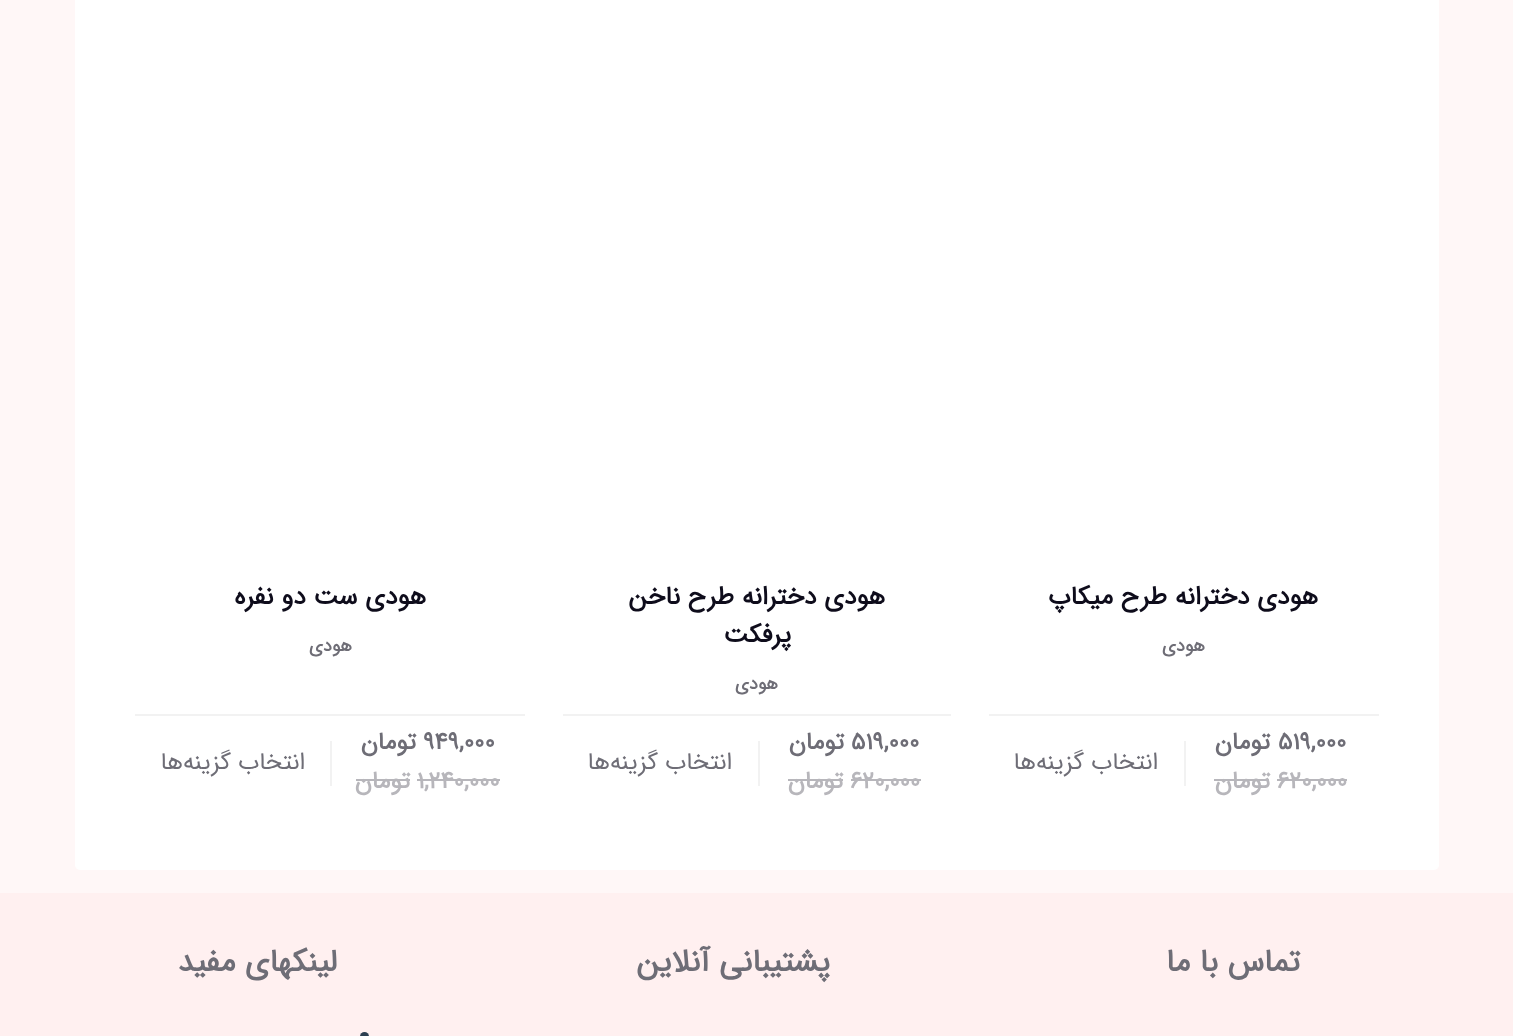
(async () => {
const canvas = document.querySelector("canvas")
canvas.width = 1513
canvas.height = 1036
const c = canvas.getContext("2d")
c.miterLimit = 4
c.fontKerning = "normal"
function T(s,x,y){c.fillText(s,x,y)}
function R(x,y,w,h){c.fillRect(x,y,w,h)}
function Q(x,y,w,h,r){c.beginPath();c.roundRect(x,y,w,h,r);c.fill()}
c.fillStyle="#fff7f7"
R(0,0,1513,1036)
c.fillStyle="#fff"
Q(75,-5,1364,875,5)
c.direction="rtl"
c.font="bold 25.5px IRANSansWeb"
c.fillStyle="#0e0c1b"
T("هودی دخترانه طرح میکاپ",1318,604)
c.font="bold 18px IRANSansWeb"
c.fillStyle="#6e6d76"
T("هودی",1205,651)
c.fillStyle="#f2f2f2"
R(989,714,390,2)
c.direction="ltr"
c.font="bold 24px IRANSansWeb"
c.fillStyle="#6e6d76"
T("519,000",1278,749)
c.direction="rtl"
T("تومان",1270,749)
c.direction="ltr"
c.fillStyle="#b7b6bb"
T("620,000",1277,788)
R(1277,779,70,2)
c.direction="rtl"
T("تومان",1270,788)
R(1214,779,55,2)
c.fillStyle="#f2f2f2"
R(1184,741,2,45)
c.font="24px IRANSansWeb"
c.fillStyle="#6e6d76"
T("انتخاب گزینه‌ها",1158,769)
c.font="bold 25.5px IRANSansWeb"
c.fillStyle="#0e0c1b"
T("هودی دخترانه طرح ناخن",885,604)
T("پرفکت",791,642)
c.font="bold 18px IRANSansWeb"
c.fillStyle="#6e6d76"
T("هودی",778,689)
c.fillStyle="#f2f2f2"
R(563,714,388,2)
c.direction="ltr"
c.font="bold 24px IRANSansWeb"
c.fillStyle="#6e6d76"
T("519,000",851,749)
c.direction="rtl"
T("تومان",844,749)
c.direction="ltr"
c.fillStyle="#b7b6bb"
T("620,000",850,788)
R(851,779,70,2)
c.direction="rtl"
T("تومان",843,788)
R(788,779,55,2)
c.fillStyle="#f2f2f2"
R(758,741,2,45)
c.font="24px IRANSansWeb"
c.fillStyle="#6e6d76"
T("انتخاب گزینه‌ها",732,769)
c.font="bold 25.5px IRANSansWeb"
c.fillStyle="#0e0c1b"
T("هودی ست دو نفره",426,604)
c.font="bold 18px IRANSansWeb"
c.fillStyle="#6e6d76"
T("هودی",352,651)
c.fillStyle="#f2f2f2"
R(135,714,390,2)
c.direction="ltr"
c.font="bold 24px IRANSansWeb"
c.fillStyle="#6e6d76"
T("949,000",423,749)
c.direction="rtl"
T("تومان",416,749)
c.direction="ltr"
c.fillStyle="#b7b6bb"
T("1,240,000",417,788)
R(417,779,83,2)
c.direction="rtl"
T("تومان",410,788)
R(356,779,54,2)
c.fillStyle="#f2f2f2"
R(330,741,2,45)
c.font="24px IRANSansWeb"
c.fillStyle="#6e6d76"
T("انتخاب گزینه‌ها",305,769)
c.fillStyle="#fff0f0"
R(0,893,1513,143)
c.font="bold 31.25px IRANSansWeb"
c.fillStyle="#6e6d76"
T("تماس با ما",1300,971)
T("پشتیبانی آنلاین",830,971)
T("لینکهای مفید",337,971)
c.fillStyle="#2c3e50"
c.beginPath()
c.arc(364.5,1036.5,4.5,0,7)
c.fill()
})()
